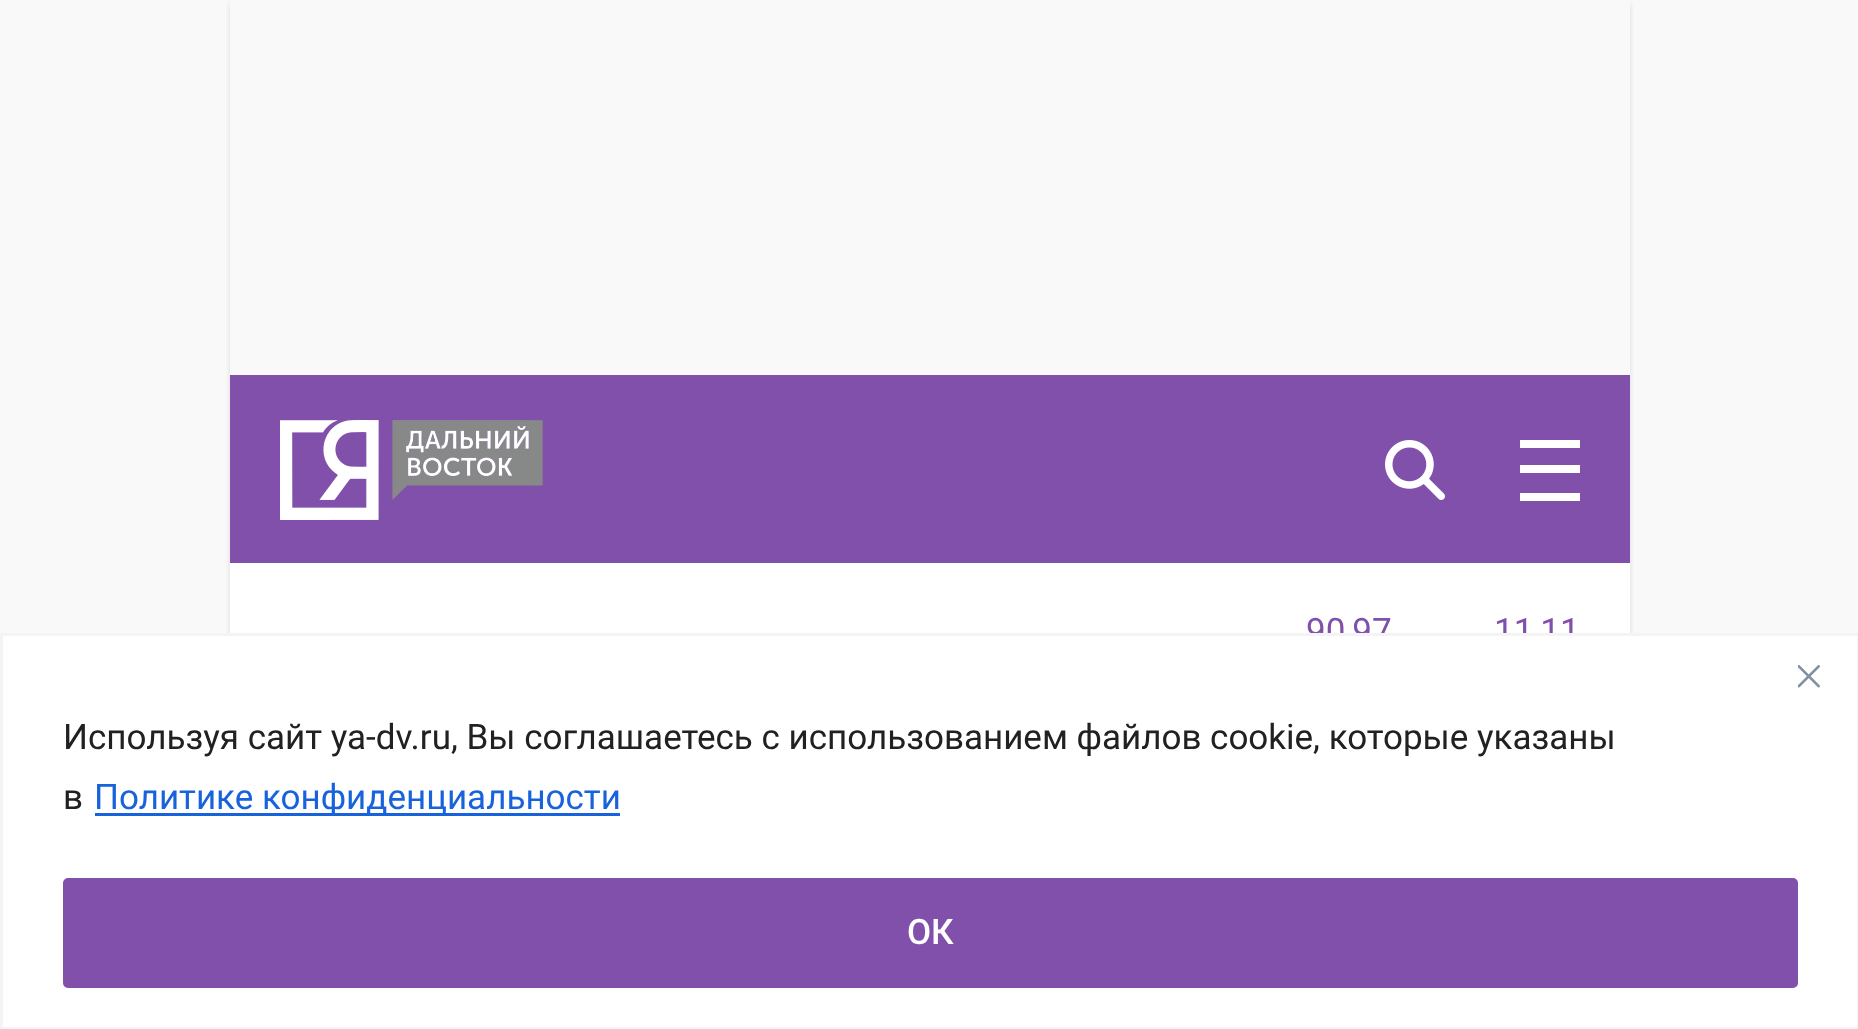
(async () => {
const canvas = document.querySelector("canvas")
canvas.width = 1858
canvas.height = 1029
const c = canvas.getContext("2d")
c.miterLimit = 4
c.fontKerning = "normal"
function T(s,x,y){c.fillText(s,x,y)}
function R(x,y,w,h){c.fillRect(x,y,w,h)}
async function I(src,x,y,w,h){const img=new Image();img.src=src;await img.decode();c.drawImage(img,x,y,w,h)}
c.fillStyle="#f9f9f9"
R(0,0,1858,1029)
c.fillStyle="#29275926"
c.filter="blur(2.5px)"
c.beginPath()
c.rect(230,3,1400,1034)
c.fill()
c.filter="none"
c.fillStyle="#fff"
R(230,563,1400,70)
c.fillStyle="#f9f9f9"
R(230,0,1400,375)
c.fillStyle="#8050ab"
R(230,375,1400,188)
await I("1.png",280,420,263,100)
await I("2.png",1385,440,60,60)
c.fillStyle="#fff"
R(1520,440,60,8)
R(1520,465,60,8)
R(1520,493,60,8)
c.font="35px Roboto"
c.fillStyle="#8050ab"
T("90,97",1306,643)
T("11,11",1494,643)
c.fillStyle="#fff"
c.beginPath()
c.rect(1.5,634.5,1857,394)
c.fill()
c.strokeStyle="#f4f4f4"
c.lineWidth=3
c.stroke()
await I("3.png",1798,665,22,23)
c.fillStyle="#212121"
T("Используя сайт ya-dv.ru, Вы соглашаетесь с использованием файлов cookie, которые указаны",63,749)
T("в",63,809)
c.fillStyle="#1863dc"
R(95,813,525,3)
T("Политике конфиденциальности",94,809)
c.fillStyle="#8050ab"
c.beginPath()
c.roundRect(65.5,880.5,1730,105,2.5)
c.fill()
c.strokeStyle="#8050ab"
c.lineWidth=5
c.stroke()
c.font="500 35px Roboto"
c.fillStyle="#fff"
T("ОК",907,944)
})()
